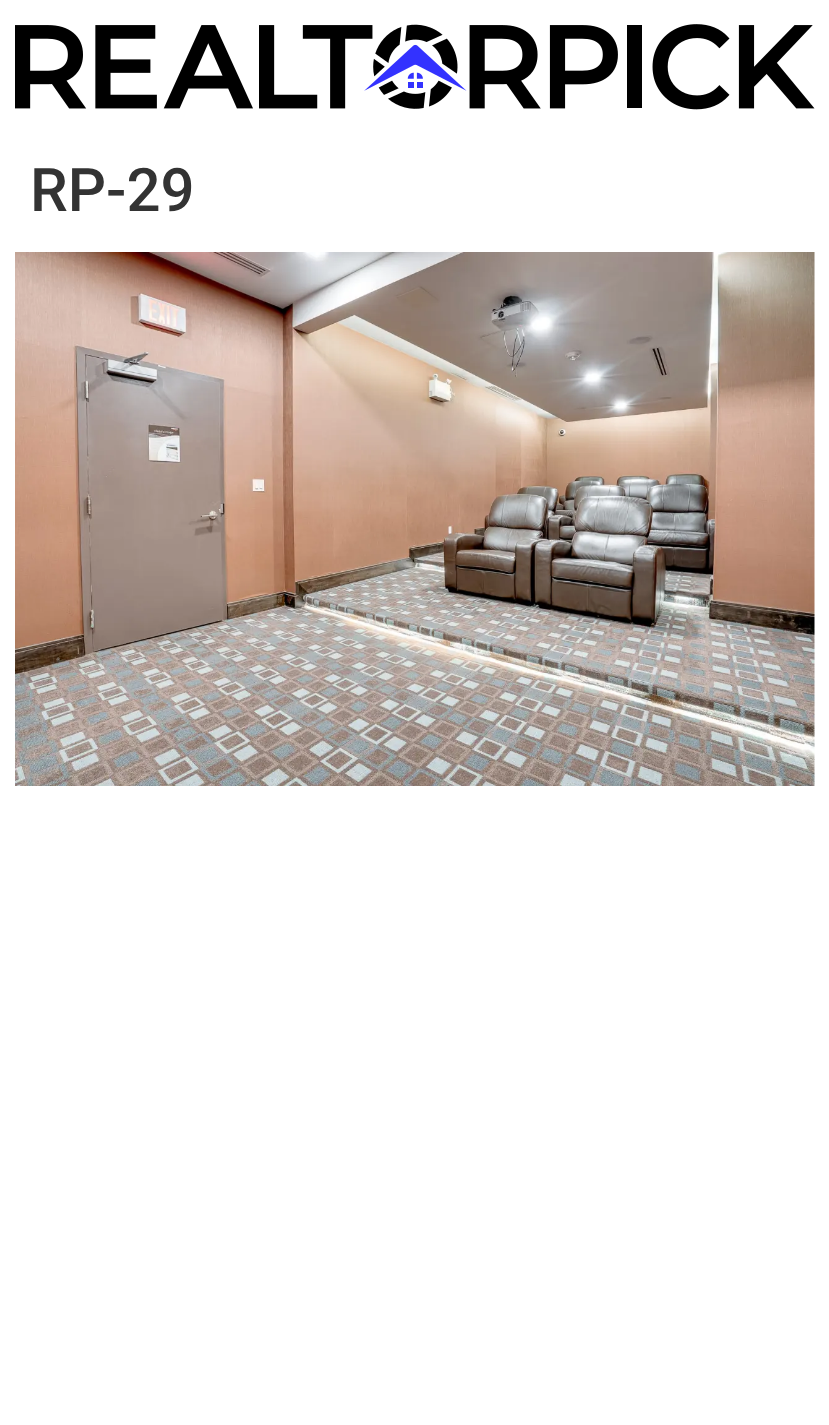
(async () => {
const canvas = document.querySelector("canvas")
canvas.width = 829
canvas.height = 1425
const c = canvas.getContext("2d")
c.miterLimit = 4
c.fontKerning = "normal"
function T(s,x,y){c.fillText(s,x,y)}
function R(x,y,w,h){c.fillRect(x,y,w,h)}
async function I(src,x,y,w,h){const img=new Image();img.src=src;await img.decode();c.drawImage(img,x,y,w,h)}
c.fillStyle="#fff"
R(0,0,829,1425)
await I("1.png",15,24,800,86)
c.font="500 60px Roboto"
c.fillStyle="#333"
T("RP-29",30,211)
await I("2.png",15,252,800,534)
})()
